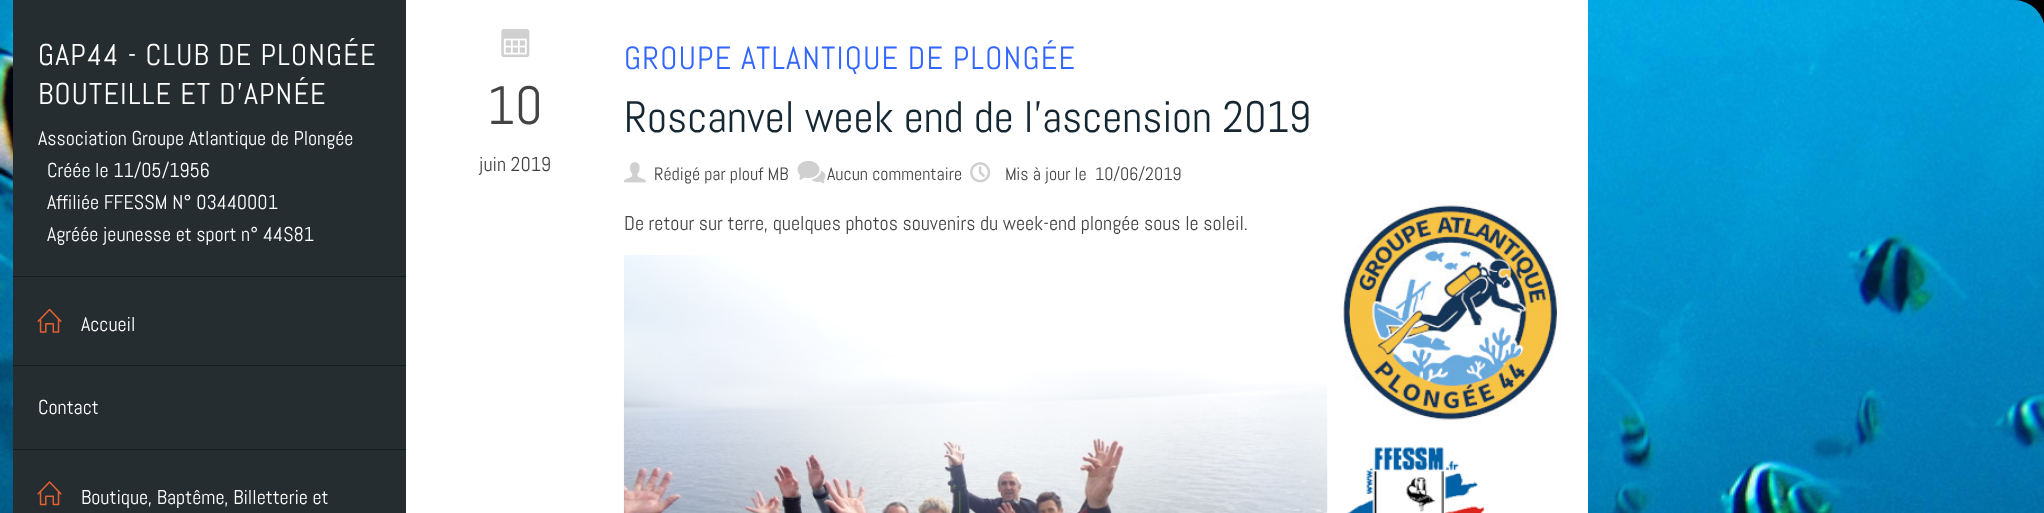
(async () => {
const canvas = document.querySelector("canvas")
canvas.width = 2044
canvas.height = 513
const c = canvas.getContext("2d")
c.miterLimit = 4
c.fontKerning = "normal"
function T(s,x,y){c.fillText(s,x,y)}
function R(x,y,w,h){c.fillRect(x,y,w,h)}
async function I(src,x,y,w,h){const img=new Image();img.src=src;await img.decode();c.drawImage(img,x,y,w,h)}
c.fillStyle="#000"
R(0,0,2044,513)
await I("1.png",0,0,2044,513)
c.fillStyle="#252d30"
R(13,0,393,365)
c.fillStyle="#151e1f"
R(13,276,393,1)
c.letterSpacing="1.2px"
c.font="30px Abel"
c.fillStyle="#fff"
T("GAP44 - CLUB DE PLONGÉE",38,65)
T("BOUTEILLE ET D'APNÉE",38,104)
c.letterSpacing="0px"
c.font="20px Abel"
T("Association Groupe Atlantique de Plongée",38,145)
T("Créée le 11/05/1956",47,177)
T("Affiliée FFESSM N° 03440001",47,209)
T("Agréée jeunesse et sport n° 44S81",47,241)
c.fillStyle="#151e1f"
R(13,365,393,1)
await I("2.png",37,308,25,25)
c.fillStyle="#fff"
T("Accueil",81,331)
c.fillStyle="#252d30"
R(13,366,393,83)
c.fillStyle="#151e1f"
R(13,449,393,1)
c.fillStyle="#fff"
T("Contact",38,414)
c.fillStyle="#252d30"
R(13,450,393,63)
await I("3.png",37,481,25,25)
c.fillStyle="#fff"
T("Boutique, Baptême, Billetterie et",81,504)
R(406,0,1182,513)
await I("4.png",501,29,29,29)
c.font="54px Abel"
c.fillStyle="#444"
T("10",487,124)
c.font="20px Abel"
T("juin 2019",479,171)
c.letterSpacing="1.25px"
c.font="32px Abel"
c.fillStyle="#36f"
T("GROUPE ATLANTIQUE DE PLONGÉE",624,69)
c.letterSpacing="0px"
c.font="44px Abel"
c.fillStyle="#152732"
T("Roscanvel week end de l’ascension 2019",624,132)
await I("5.png",623,162,23,21)
c.font="18px Abel"
c.fillStyle="#444"
T("Rédigé par plouf MB",654,180)
await I("6.png",797,161,29,23)
T("Aucun commentaire",827,180)
await I("7.png",970,162,21,21)
T("Mis à jour le",1005,180)
T("10/06/2019",1095,180)
c.font="20px Abel"
T("De retour sur terre, quelques photos souvenirs du week-end plongée sous le soleil.",624,230)
await I("8.png",623,255,705,258)
await I("9.png",1340,201,222,224)
await I("10.png",1347,446,138,67)
})()
